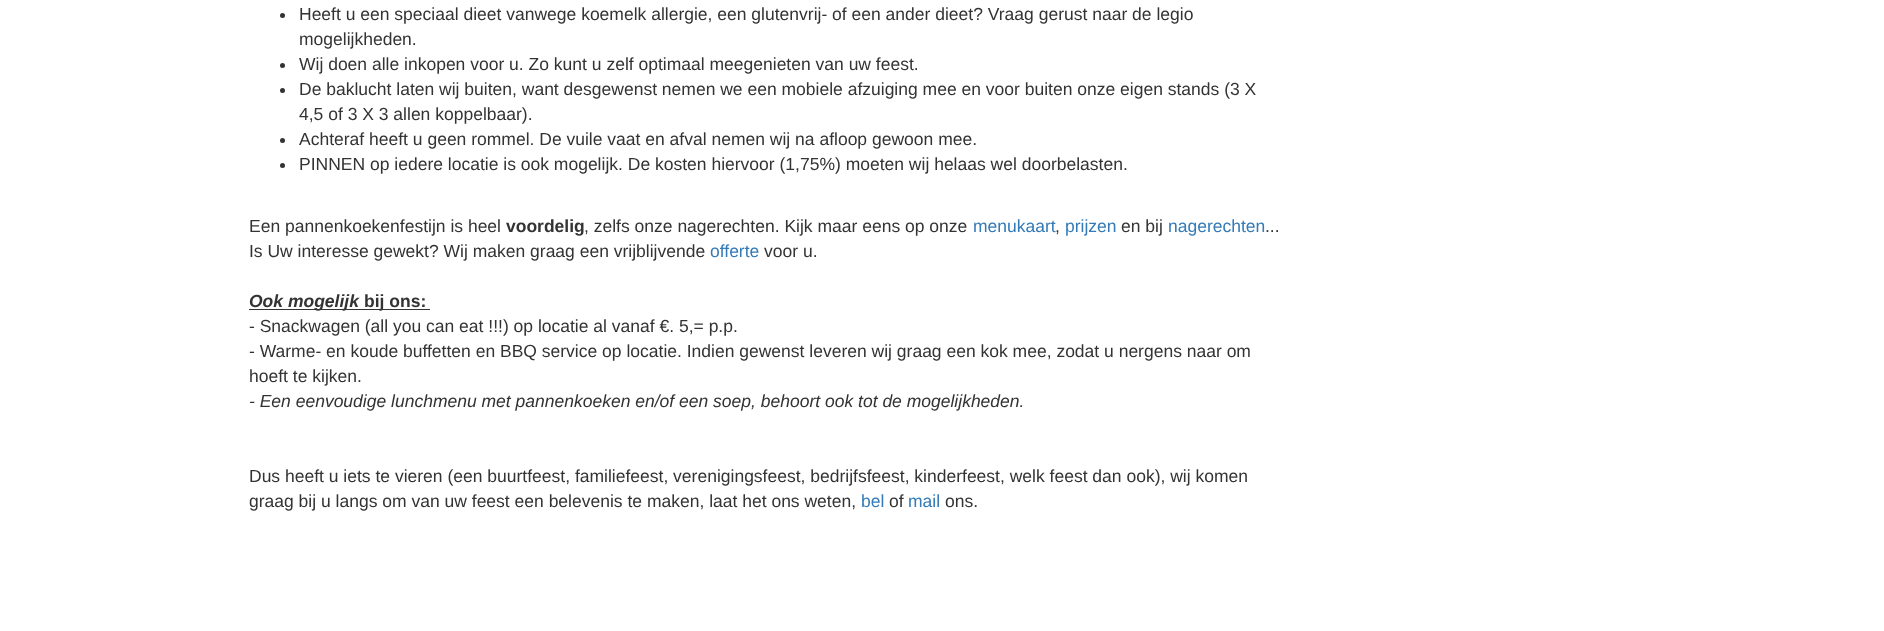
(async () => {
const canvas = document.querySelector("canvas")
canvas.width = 1884
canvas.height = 631
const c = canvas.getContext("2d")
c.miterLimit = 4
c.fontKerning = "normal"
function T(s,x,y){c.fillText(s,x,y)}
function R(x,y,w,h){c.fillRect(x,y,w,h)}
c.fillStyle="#fff"
R(0,0,1884,631)
c.fillStyle="#333"
c.beginPath()
c.arc(282.5,15.5,2.5,0,7)
c.fill()
c.font="17.5px Liberation Sans"
T("Heeft u een speciaal dieet vanwege koemelk allergie, een glutenvrij- of een ander dieet? Vraag gerust naar de legio",299,20)
T("mogelijkheden.",299,45)
c.beginPath()
c.arc(282.5,65.5,2.5,0,7)
c.fill()
T("Wij doen alle inkopen voor u. Zo kunt u zelf optimaal meegenieten van uw feest.",299,70)
c.beginPath()
c.arc(282.5,90.5,2.5,0,7)
c.fill()
T("De baklucht laten wij buiten, want desgewenst nemen we een mobiele afzuiging mee en voor buiten onze eigen stands (3 X",299,95)
T("4,5 of 3 X 3 allen koppelbaar).",299,120)
c.beginPath()
c.arc(282.5,140.5,2.5,0,7)
c.fill()
T("Achteraf heeft u geen rommel. De vuile vaat en afval nemen wij na afloop gewoon mee.",299,145)
c.beginPath()
c.arc(282.5,165.5,2.5,0,7)
c.fill()
T("PINNEN op iedere locatie is ook mogelijk. De kosten hiervoor (1,75%) moeten wij helaas wel doorbelasten.",299,170)
T("Een pannenkoekenfestijn is heel",249,232)
c.font="bold 17.5px Liberation Sans"
T("voordelig",506,232)
c.font="17.5px Liberation Sans"
T(", zelfs onze nagerechten. Kijk maar eens op onze",584,232)
c.fillStyle="#337ab7"
T("menukaart",973,232)
c.fillStyle="#333"
T(",",1055,232)
c.fillStyle="#337ab7"
T("prijzen",1065,232)
c.fillStyle="#333"
T("en bij",1121,232)
c.fillStyle="#337ab7"
T("nagerechten",1168,232)
c.fillStyle="#333"
T("...",1265,232)
T("Is Uw interesse gewekt? Wij maken graag een vrijblijvende",249,257)
c.fillStyle="#337ab7"
T("offerte",710,257)
c.fillStyle="#333"
T("voor u.",764,257)
R(249,309,110,1)
c.font="italic bold 17.5px Liberation Sans"
T("Ook mogelijk",249,307)
R(359,309,71,1)
c.font="bold 17.5px Liberation Sans"
T("bij ons:",364,307)
c.font="17.5px Liberation Sans"
T("- Snackwagen (all you can eat !!!) op locatie al vanaf €. 5,= p.p.",249,332)
T("- Warme- en koude buffetten en BBQ service op locatie. Indien gewenst leveren wij graag een kok mee, zodat u nergens naar om",249,357)
T("hoeft te kijken.",249,382)
c.font="italic 17.5px Liberation Sans"
T("- Een eenvoudige lunchmenu met pannenkoeken en/of een soep, behoort ook tot de mogelijkheden.",249,407)
c.font="17.5px Liberation Sans"
T("Dus heeft u iets te vieren (een buurtfeest, familiefeest, verenigingsfeest, bedrijfsfeest, kinderfeest, welk feest dan ook), wij komen",249,482)
T("graag bij u langs om van uw feest een belevenis te maken, laat het ons weten,",249,507)
c.fillStyle="#337ab7"
T("bel",861,507)
c.fillStyle="#333"
T("of",889,507)
c.fillStyle="#337ab7"
T("mail",908,507)
c.fillStyle="#333"
T("ons.",945,507)
})()
